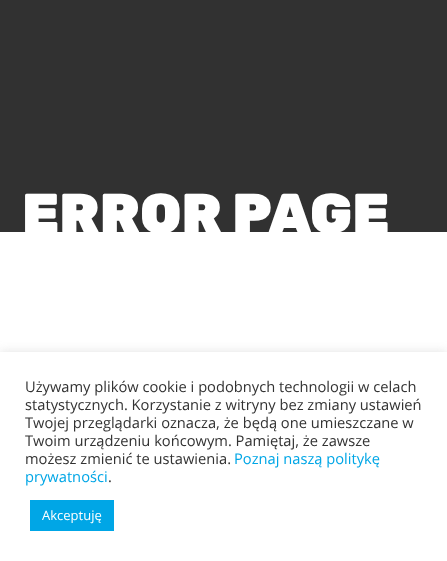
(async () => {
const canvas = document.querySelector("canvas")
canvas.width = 447
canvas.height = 561
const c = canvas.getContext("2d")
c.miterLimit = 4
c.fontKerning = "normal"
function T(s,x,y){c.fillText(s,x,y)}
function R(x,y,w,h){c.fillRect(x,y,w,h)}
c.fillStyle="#fff"
R(0,0,447,561)
c.fillStyle="#313131"
R(0,0,447,232)
c.save()
c.beginPath()
c.rect(0,0,447,232)
c.clip()
c.font="900 56px Rubik"
c.fillStyle="#fff"
T("ERROR PAGE",22,233)
c.restore()
c.fillStyle="#acabab4d"
c.filter="blur(5px)"
c.beginPath()
c.rect(0,351,447,209)
c.fill()
c.filter="none"
c.fillStyle="#fff"
R(0,352,447,209)
c.font="14.7px Open Sans"
c.fillStyle="#333"
T("Używamy plików cookie i podobnych technologii w celach",25,392)
T("statystycznych. Korzystanie z witryny bez zmiany ustawień",25,410)
T("Twojej przeglądarki oznacza, że będą one umieszczane w",25,428)
T("Twoim urządzeniu końcowym. Pamiętaj, że zawsze",25,446)
T("możesz zmienić te ustawienia.",25,464)
c.fillStyle="#00a6e6"
T("Poznaj naszą politykę",234,464)
T("prywatności",25,482)
c.fillStyle="#333"
T(".",108,482)
c.fillStyle="#00a6e6"
R(30,500,84,31)
c.font="13px Open Sans"
c.fillStyle="#fff"
T("Akceptuję",42,520)
})()
